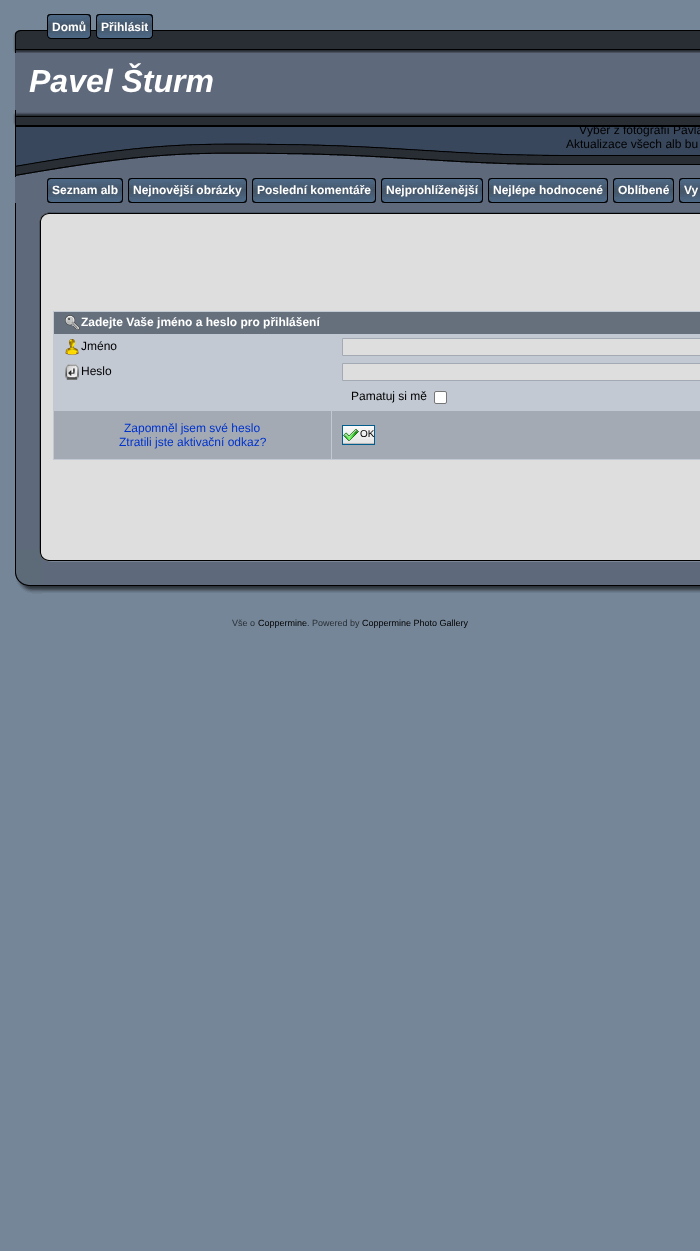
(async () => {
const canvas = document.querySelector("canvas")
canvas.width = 700
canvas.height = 1251
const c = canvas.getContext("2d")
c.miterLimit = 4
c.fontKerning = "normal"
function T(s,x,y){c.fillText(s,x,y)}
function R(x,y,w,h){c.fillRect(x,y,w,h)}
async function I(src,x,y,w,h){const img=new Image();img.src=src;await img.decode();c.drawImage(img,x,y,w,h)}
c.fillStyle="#758698"
R(0,0,700,1251)
await I("1.png",42,30,658,23)
await I("2.png",47,14,5,25)
await I("3.png",52,14,34,25)
c.font="bold 12px Liberation Sans"
c.fillStyle="#fff"
T("Domů",52,31)
await I("4.png",86,14,5,25)
await I("2.png",96,14,5,25)
await I("5.png",101,14,47,25)
T("Přihlásit",101,31)
await I("4.png",148,14,5,25)
await I("6.png",13,30,29,23)
c.fillStyle="#5e697b"
R(15,53,685,57)
c.font="italic bold 32px Liberation Sans"
c.fillStyle="#fff"
T("Pavel Šturm",29,92)
await I("7.png",13,110,547,67)
await I("8.png",560,110,140,67)
c.font="12px Liberation Sans"
c.fillStyle="#000"
T("Výběr z fotografií Pavla",579,134)
T("Aktualizace všech alb bu",566,148)
c.fillStyle="#5e697b"
R(15,177,685,26)
await I("9.png",47,178,5,25)
await I("10.png",52,178,66,25)
c.font="bold 12px Liberation Sans"
c.fillStyle="#fff"
T("Seznam alb",52,194)
await I("11.png",118,178,5,25)
await I("9.png",128,178,5,25)
await I("12.png",133,178,109,25)
T("Nejnovější obrázky",133,194)
await I("11.png",242,178,5,25)
await I("9.png",252,178,5,25)
await I("13.png",257,178,114,25)
T("Poslední komentáře",257,194)
await I("11.png",371,178,5,25)
await I("9.png",381,178,5,25)
await I("14.png",386,178,92,25)
T("Nejprohlíženější",386,194)
await I("11.png",478,178,5,25)
await I("9.png",488,178,5,25)
await I("15.png",493,178,110,25)
T("Nejlépe hodnocené",493,194)
await I("11.png",603,178,5,25)
await I("9.png",613,178,5,25)
await I("16.png",618,178,51,25)
T("Oblíbené",618,194)
await I("11.png",669,178,5,25)
await I("9.png",679,178,5,25)
await I("17.png",684,178,16,25)
T("Vy",684,194)
await I("18.png",15,203,27,18)
await I("19.png",42,203,14,18)
await I("20.png",56,203,644,18)
await I("21.png",15,221,27,328)
c.fillStyle="#dedede"
R(42,221,658,328)
c.fillStyle="#c2c9d3"
R(53,311,647,149)
c.fillStyle="#66707c"
R(54,312,646,22)
await I("22.png",65,315,15,16)
c.fillStyle="#fff"
T("Zadejte Vaše jméno a heslo pro přihlášení",81,326)
await I("23.png",65,339,14,16)
c.font="12px Liberation Sans"
c.fillStyle="#000"
T("Jméno",81,350)
c.fillStyle="#dedede"
c.beginPath()
c.rect(342.5,338.5,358,17)
c.fill()
c.strokeStyle="#a3aab4"
c.stroke()
await I("24.png",65,364,14,16)
c.fillStyle="#000"
T("Heslo",81,375)
c.fillStyle="#dedede"
c.beginPath()
c.rect(342.5,363.5,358,17)
c.fill()
c.stroke()
c.fillStyle="#000"
T("Pamatuj si mě",351,400)
c.fillStyle="#fff"
c.beginPath()
c.roundRect(434.5,391.5,12,12,1.5)
c.fill()
c.strokeStyle="#767676"
c.stroke()
c.fillStyle="#a3aab4"
R(54,411,277,48)
c.fillStyle="#03c"
T("Zapomněl jsem své heslo",124,432)
T("Ztratili jste aktivační odkaz?",119,446)
c.fillStyle="#a3aab4"
R(332,411,368,48)
await I("25.png",343,426,31,18)
c.strokeStyle="#005d8c"
c.strokeRect(342.5,425.5,32,19)
await I("26.png",343,429,16,12)
c.font="10px Liberation Sans"
c.fillStyle="#000"
T("OK",360,437)
await I("27.png",15,549,27,45)
await I("28.png",42,549,208,44)
await I("29.png",250,549,301,44)
await I("30.png",551,549,149,44)
c.font="9px Liberation Sans"
c.fillStyle="#292e34"
T("Vše o",232,626)
c.fillStyle="#000"
T("Coppermine",258,626)
c.fillStyle="#292e34"
T(". Powered by",307,626)
c.fillStyle="#000"
T("Coppermine Photo Gallery",362,626)
})()
